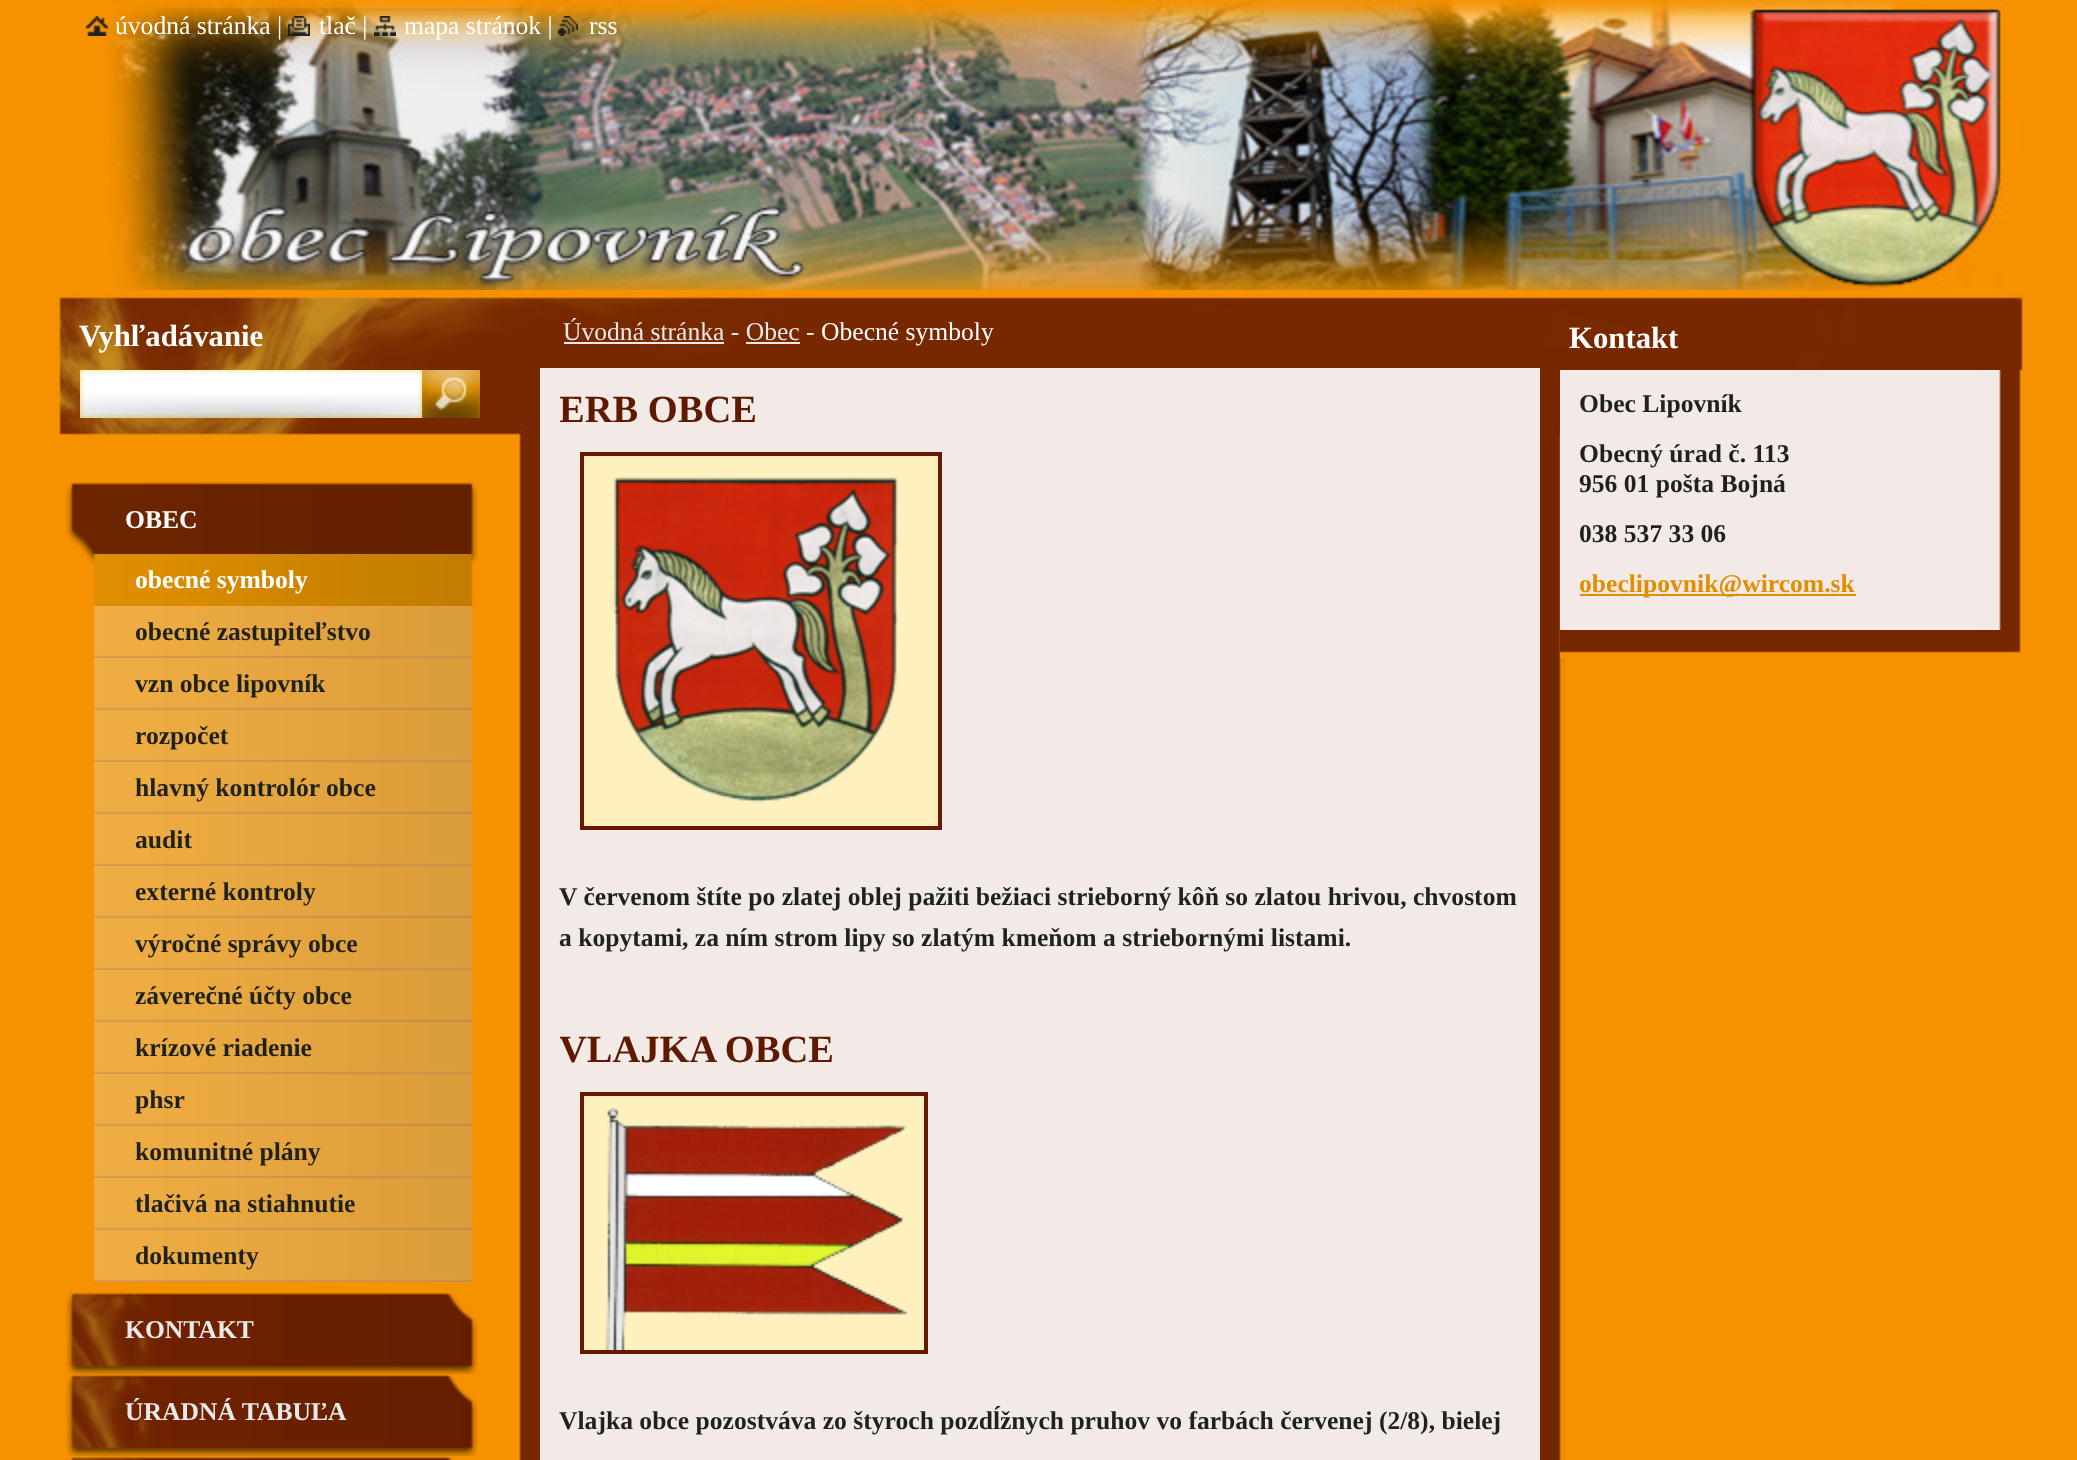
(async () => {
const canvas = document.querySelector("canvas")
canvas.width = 2077
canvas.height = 1460
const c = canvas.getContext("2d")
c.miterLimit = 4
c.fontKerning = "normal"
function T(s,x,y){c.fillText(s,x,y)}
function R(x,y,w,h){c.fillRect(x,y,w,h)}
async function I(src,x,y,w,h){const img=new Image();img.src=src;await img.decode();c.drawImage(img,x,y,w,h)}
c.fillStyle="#f69100"
R(0,0,2077,1460)
await I("1.png",106,0,1920,290)
await I("2.png",86,16,22,20)
c.font="25.6px Liberation Serif"
c.fillStyle="#fff"
T("úvodná stránka |",115,34)
await I("3.png",288,16,22,20)
T("tlač |",319,34)
await I("4.png",374,16,22,20)
T("mapa stránok |",404,34)
await I("5.png",558,16,20,20)
T("rss",589,34)
await I("6.png",54,292,1970,148)
c.font="bold 30.75px Liberation Serif"
T("Vyhľadávanie",79,346)
await I("7.png",80,370,342,48)
await I("8.png",422,370,58,48)
await I("9.png",514,440,1052,1020)
await I("10.png",514,292,1052,148)
c.font="25.6px Liberation Serif"
c.fillStyle="#e9e9e9"
T("Úvodná stránka - Obec -",563,340)
R(564,342,160,2)
c.fillStyle="#fff"
T("Obecné symboly",821,340)
c.fillStyle="#e9e9e9"
R(746,342,54,2)
c.fillStyle="#f2eae6"
R(540,368,1000,1092)
c.save()
c.beginPath()
c.rect(560,388,960,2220)
c.clip()
c.font="bold 38.5px Liberation Serif"
c.fillStyle="#5f1900"
T("ERB OBCE",559,422)
c.restore()
c.fillStyle="#fef1be"
c.beginPath()
c.rect(582,454,358,374)
c.fill()
c.strokeStyle="#661800"
c.lineWidth=4
c.stroke()
await I("11.png",613,477,286,326)
c.font="bold 25.6px Liberation Serif"
c.fillStyle="#1f221c"
T("V červenom štíte po zlatej oblej pažiti bežiaci strieborný kôň so zlatou hrivou, chvostom",559,905)
T("a kopytami, za ním strom lipy so zlatým kmeňom a striebornými listami.",559,946)
c.save()
c.beginPath()
c.rect(560,388,960,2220)
c.clip()
c.font="bold 38.5px Liberation Serif"
c.fillStyle="#5f1900"
T("VLAJKA OBCE",559,1062)
c.restore()
c.fillStyle="#fef1be"
c.beginPath()
c.rect(582,1094,344,258)
c.fill()
c.stroke()
await I("12.png",605,1107,303,243)
c.fillStyle="#1f221c"
T("Vlajka obce pozostváva zo štyroch pozdĺžnych pruhov vo farbách červenej (2/8), bielej",559,1429)
c.font="bold 30.75px Liberation Serif"
c.fillStyle="#fff"
T("Kontakt",1569,348)
await I("13.png",1560,370,464,260)
c.font="bold 25.6px Liberation Serif"
c.fillStyle="#1f221c"
T("Obec Lipovník",1579,412)
T("Obecný úrad č. 113",1579,462)
T("956 01 pošta Bojná",1579,492)
T("038 537 33 06",1579,542)
c.fillStyle="#df8f00"
R(1580,594,276,2)
T("obeclipovnik@wircom.sk",1579,592)
await I("14.png",1560,630,463,28)
await I("15.png",66,482,412,82)
c.fillStyle="#fff"
T("OBEC",125,528)
await I("16.png",93,554,380,52)
T("obecné symboly",135,588)
await I("17.png",93,606,380,52)
c.fillStyle="#1f221c"
T("obecné zastupiteľstvo",135,640)
await I("17.png",93,658,380,52)
T("vzn obce lipovník",135,692)
await I("17.png",93,710,380,52)
T("rozpočet",135,744)
await I("17.png",93,762,380,52)
T("hlavný kontrolór obce",135,796)
await I("17.png",93,814,380,52)
T("audit",135,848)
await I("17.png",93,866,380,52)
T("externé kontroly",135,900)
await I("17.png",93,918,380,52)
T("výročné správy obce",135,952)
await I("17.png",93,970,380,52)
T("záverečné účty obce",135,1004)
await I("17.png",93,1022,380,52)
T("krízové riadenie",135,1056)
await I("17.png",93,1074,380,52)
T("phsr",135,1108)
await I("17.png",93,1126,380,52)
T("komunitné plány",135,1160)
await I("17.png",93,1178,380,52)
T("tlačivá na stiahnutie",135,1212)
await I("17.png",93,1230,380,52)
T("dokumenty",135,1264)
await I("18.png",66,1292,412,82)
c.fillStyle="#e9e9e9"
T("KONTAKT",125,1338)
await I("18.png",66,1374,412,82)
T("ÚRADNÁ TABUĽA",125,1420)
await I("19.png",68,1456,386,4)
})()
